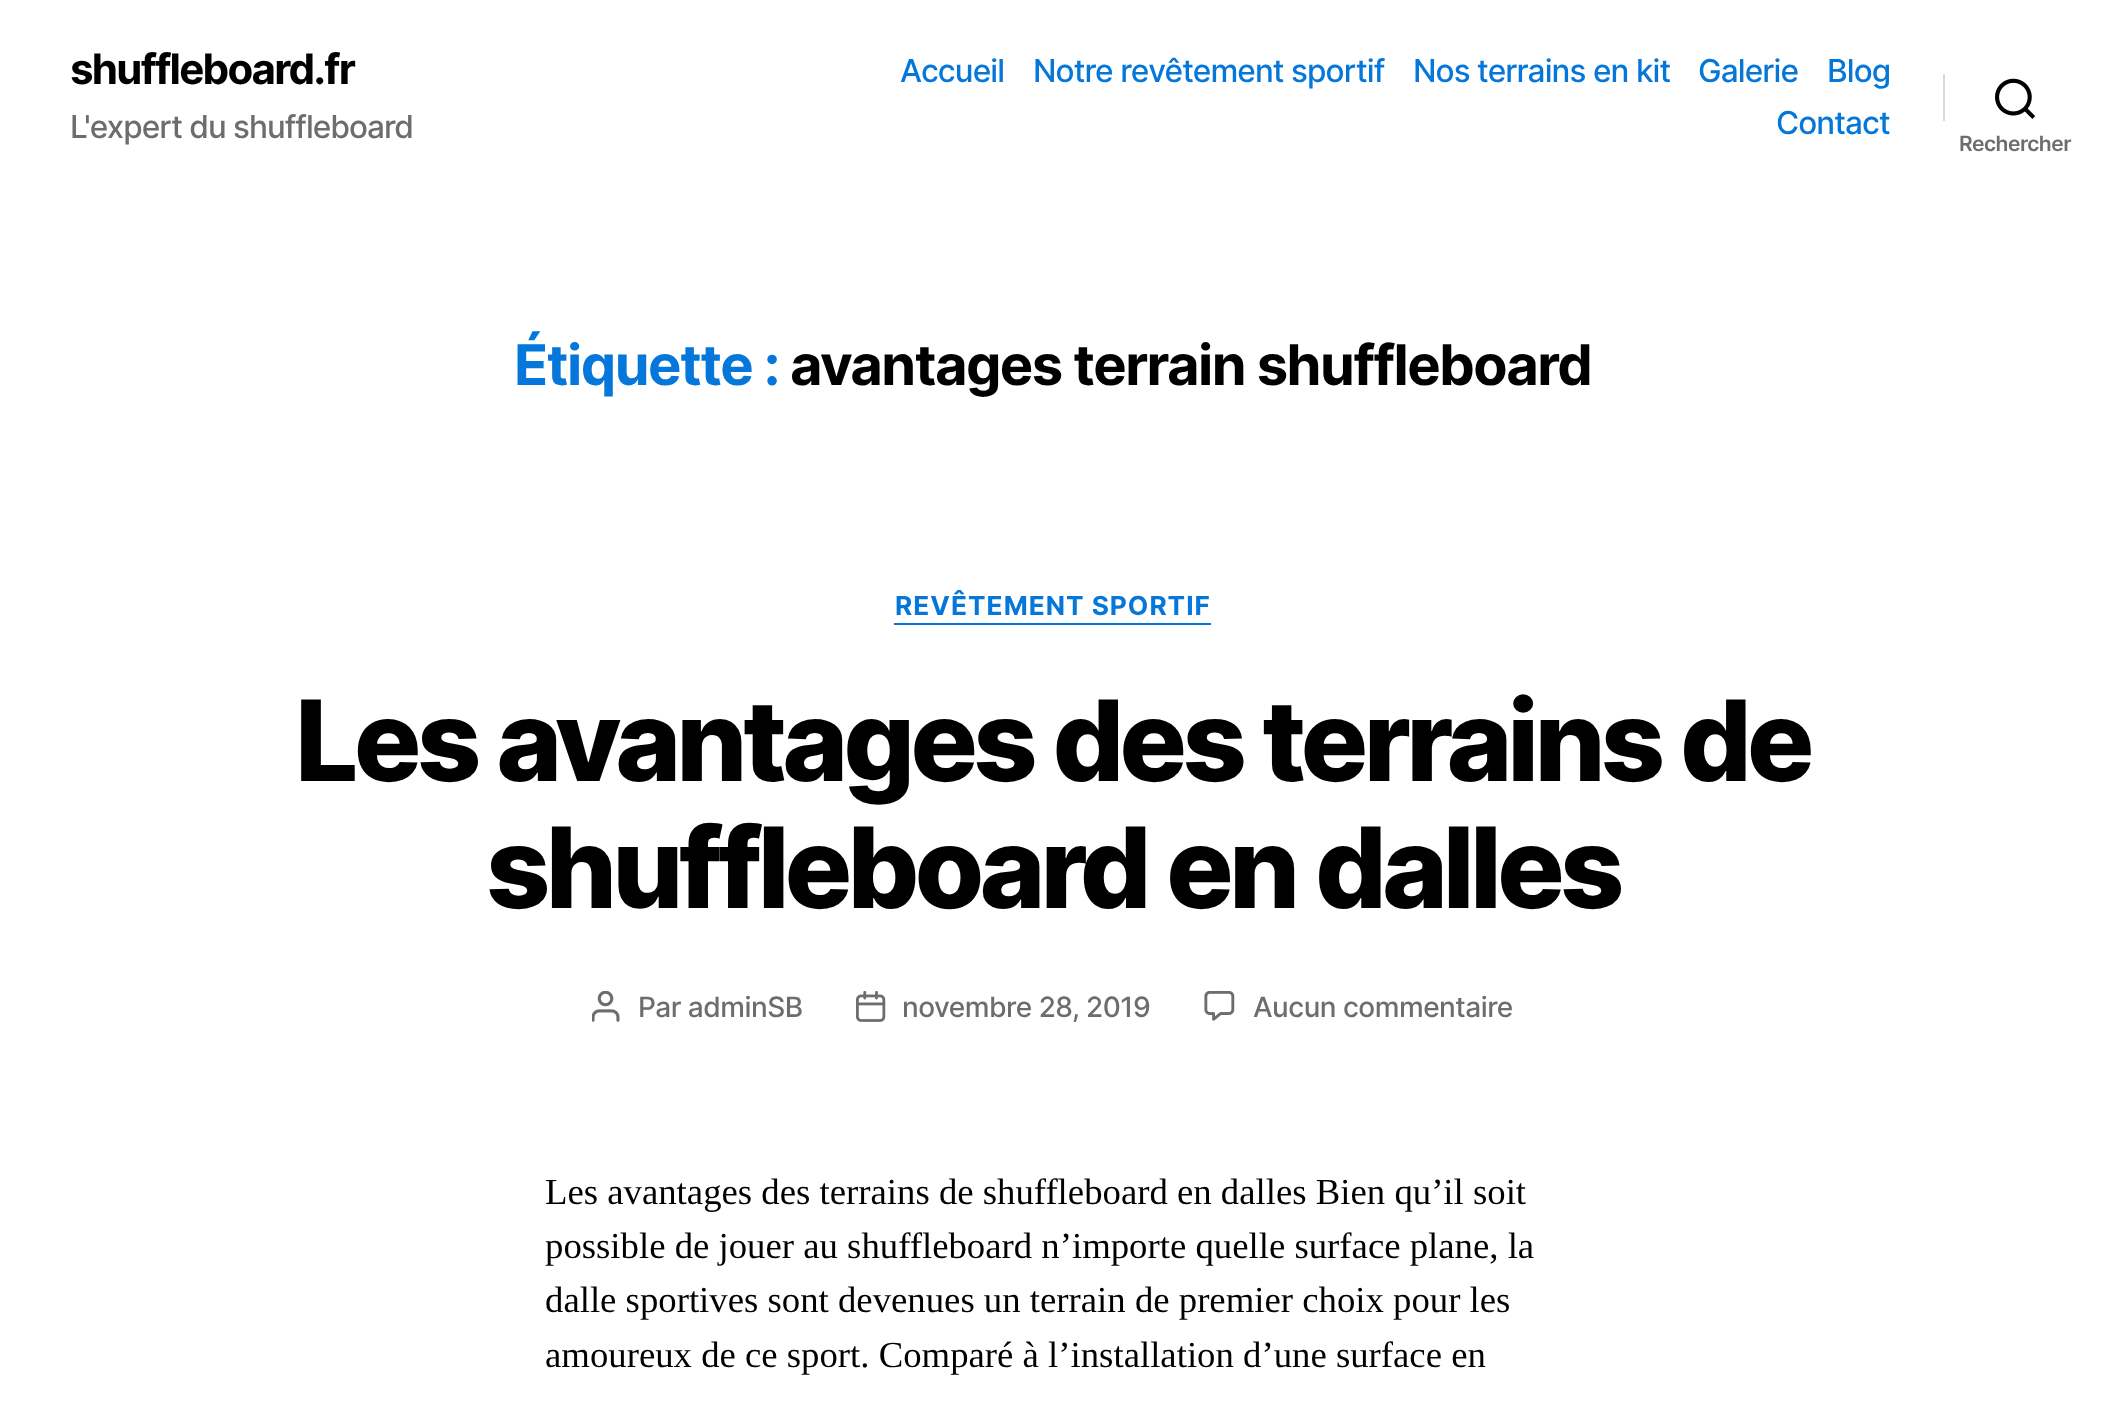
(async () => {
const canvas = document.querySelector("canvas")
canvas.width = 2105
canvas.height = 1401
const c = canvas.getContext("2d")
c.miterLimit = 4
c.fontKerning = "normal"
function T(s,x,y){c.fillText(s,x,y)}
function R(x,y,w,h){c.fillRect(x,y,w,h)}
async function I(src,x,y,w,h){const img=new Image();img.src=src;await img.decode();c.drawImage(img,x,y,w,h)}
c.fillStyle="#fff"
R(0,0,2105,1401)
c.letterSpacing="-1.75px"
c.font="bold 42px Inter"
c.fillStyle="#000"
T("shuffleboard.fr",70,84)
c.letterSpacing="-1px"
c.font="500 31.5px Inter"
c.fillStyle="#6d6d6d"
T("L'expert du shuffleboard",70,138)
c.letterSpacing="-0.9px"
c.fillStyle="#0577da"
T("Accueil",900,82)
T("Notre revêtement sportif",1033,82)
T("Nos terrains en kit",1413,82)
T("Galerie",1698,82)
T("Blog",1827,82)
T("Contact",1776,134)
c.fillStyle="#dbdbdb"
R(1943,74,2,47)
await I("1.png",1995,78,40,41)
c.letterSpacing="-0.5px"
c.font="600 21px Inter"
c.fillStyle="#6d6d6d"
T("Rechercher",1959,151)
c.letterSpacing="-1.5px"
c.font="bold 56px Inter"
c.fillStyle="#0577da"
T("Étiquette :",514,385)
c.fillStyle="#000"
T("avantages terrain shuffleboard",790,385)
c.fillStyle="#0577da"
R(894,623,317,2)
c.letterSpacing="1px"
c.font="bold 26.25px Inter"
T("REVÊTEMENT SPORTIF",895,615)
c.letterSpacing="-4.65px"
c.font="800 112px Inter"
c.fillStyle="#000"
T("Les avantages des terrains de",295,781)
T("shuffleboard en dalles",486,908)
await I("2.png",592,991,28,31)
c.letterSpacing="-0.5px"
c.font="500 28px Inter"
c.fillStyle="#6d6d6d"
T("Par adminSB",638,1017)
await I("3.png",856,991,30,31)
T("novembre 28, 2019",902,1017)
await I("4.png",1204,991,31,30)
T("Aucun commentaire",1253,1017)
c.letterSpacing="0px"
c.font="36.75px Liberation Serif"
c.fillStyle="#000"
T("Les avantages des terrains de shuffleboard en dalles Bien qu’il soit",545,1204)
T("possible de jouer au shuffleboard n’importe quelle surface plane, la",545,1258)
T("dalle sportives sont devenues un terrain de premier choix pour les",545,1312)
T("amoureux de ce sport. Comparé à l’installation d’une surface en",545,1367)
})()
